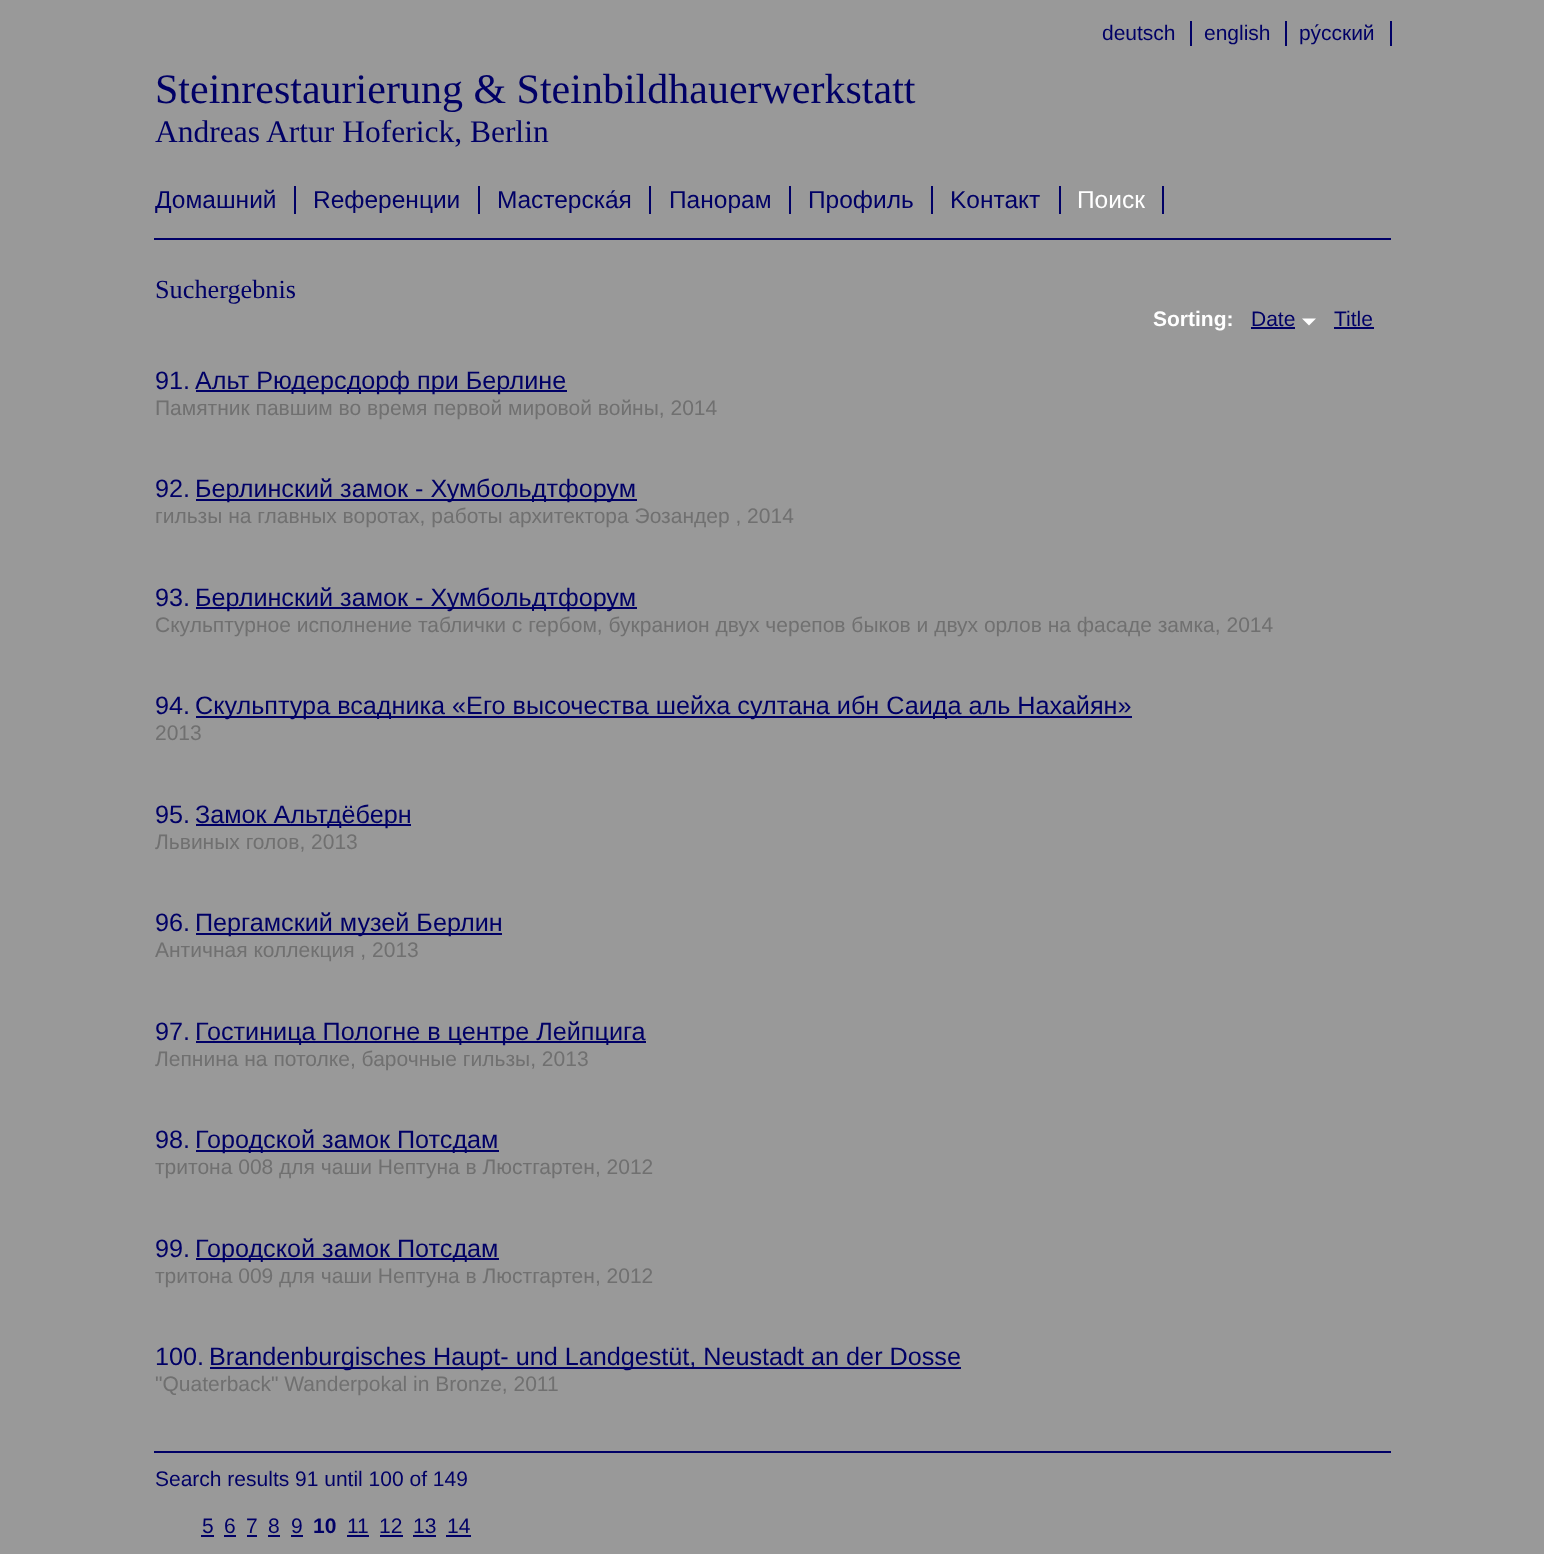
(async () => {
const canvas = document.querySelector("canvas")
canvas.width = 1544
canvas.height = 1554
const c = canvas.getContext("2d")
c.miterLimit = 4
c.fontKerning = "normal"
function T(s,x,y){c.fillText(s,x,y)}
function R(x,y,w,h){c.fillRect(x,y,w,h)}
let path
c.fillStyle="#999"
R(0,0,1544,1554)
c.fillStyle="#006"
R(154,238,1237,2)
c.font="21px Liberation Sans"
T("deutsch",1102,40)
R(1190,21,2,25)
T("english",1204,40)
R(1285,21,2,25)
T("ру́сский",1299,40)
R(1390,21,2,25)
c.font="42px Liberation Serif"
T("Steinrestaurierung & Steinbildhauerwerkstatt",155,103)
c.font="31.5px Liberation Serif"
T("Andreas Artur Hoferick, Berlin",155,142)
c.font="24.5px Liberation Sans"
T("Домашний",155,208)
R(294,186,2,28)
T("Rеференции",313,208)
R(478,186,2,28)
T("Mастерска́я",497,208)
R(649,186,2,28)
T("Панорам",669,208)
R(789,186,2,28)
T("Профиль",808,208)
R(931,186,2,28)
T("Kонтакт",950,208)
R(1059,186,2,28)
c.fillStyle="#fff"
T("Поиск",1077,208)
c.fillStyle="#006"
R(1162,186,2,28)
c.font="26.25px Liberation Serif"
T("Suchergebnis",155,298)
c.font="bold 21px Liberation Sans"
c.fillStyle="#fff"
T("Sorting:",1153,326)
c.font="21px Liberation Sans"
c.fillStyle="#006"
T("Date",1251,326)
R(1251,327,44,2)
c.fillStyle="#fff"
path = new Path2D("M1302 318.5h14l-7 7z")
c.fill(path)
c.fillStyle="#006"
T("Title",1334,326)
R(1334,327,40,2)
c.font="25.2px Liberation Sans"
T("91.",155,389)
R(196,390,371,2)
T("Альт Рюдерсдорф при Берлине",195,389)
c.font="21px Liberation Sans"
c.fillStyle="#707070"
T("Памятник павшим во время первой мировой войны, 2014",155,415)
c.font="25.2px Liberation Sans"
c.fillStyle="#006"
T("92.",155,497)
R(196,499,441,2)
T("Берлинский замок - Хумбольдтфорум",195,497)
c.font="21px Liberation Sans"
c.fillStyle="#707070"
T("гильзы на главных воротах, работы архитектора Эозандер , 2014",155,523)
c.font="25.2px Liberation Sans"
c.fillStyle="#006"
T("93.",155,606)
R(196,607,441,2)
T("Берлинский замок - Хумбольдтфорум",195,606)
c.font="21px Liberation Sans"
c.fillStyle="#707070"
T("Скульптурное исполнение таблички с гербом, букранион двух черепов быков и двух орлов на фасаде замка, 2014",155,632)
c.font="25.2px Liberation Sans"
c.fillStyle="#006"
T("94.",155,714)
R(196,716,936,2)
T("Скульптура всадника «Его высочества шейха султана ибн Саида аль Нахайян»",195,714)
c.font="21px Liberation Sans"
c.fillStyle="#707070"
T("2013",155,740)
c.font="25.2px Liberation Sans"
c.fillStyle="#006"
T("95.",155,823)
R(196,824,215,2)
T("Замок Альтдёберн",195,823)
c.font="21px Liberation Sans"
c.fillStyle="#707070"
T("Львиных голов, 2013",155,849)
c.font="25.2px Liberation Sans"
c.fillStyle="#006"
T("96.",155,931)
R(196,933,306,2)
T("Пергамский музей Берлин",195,931)
c.font="21px Liberation Sans"
c.fillStyle="#707070"
T("Античная коллекция , 2013",155,957)
c.font="25.2px Liberation Sans"
c.fillStyle="#006"
T("97.",155,1040)
R(196,1041,450,2)
T("Гостиница Пологне в центре Лейпцига",195,1040)
c.font="21px Liberation Sans"
c.fillStyle="#707070"
T("Лепнина на потолке, барочные гильзы, 2013",155,1066)
c.font="25.2px Liberation Sans"
c.fillStyle="#006"
T("98.",155,1148)
R(196,1150,303,2)
T("Городской замок Потсдам",195,1148)
c.font="21px Liberation Sans"
c.fillStyle="#707070"
T("тритона 008 для чаши Нептуна в Люстгартен, 2012",155,1174)
c.font="25.2px Liberation Sans"
c.fillStyle="#006"
T("99.",155,1257)
R(196,1258,303,2)
T("Городской замок Потсдам",195,1257)
c.font="21px Liberation Sans"
c.fillStyle="#707070"
T("тритона 009 для чаши Нептуна в Люстгартен, 2012",155,1283)
c.font="25.2px Liberation Sans"
c.fillStyle="#006"
T("100.",155,1365)
R(210,1367,751,2)
T("Brandenburgisches Haupt- und Landgestüt, Neustadt an der Dosse",209,1365)
c.font="21px Liberation Sans"
c.fillStyle="#707070"
T("\"Quaterback\" Wanderpokal in Bronze, 2011",155,1391)
c.fillStyle="#006"
R(154,1451,1237,2)
T("Search results 91 until 100 of 149",155,1486)
T("5",202,1533)
R(201,1535,13,2)
T("6",224,1533)
R(224,1535,12,2)
T("7",246,1533)
R(247,1535,10,2)
T("8",268,1533)
R(268,1535,12,2)
T("9",291,1533)
R(291,1535,12,2)
c.font="bold 21px Liberation Sans"
T("10",313,1533)
c.font="21px Liberation Sans"
T("11",347,1533)
R(347,1535,22,2)
T("12",379,1533)
R(380,1535,23,2)
T("13",413,1533)
R(413,1535,23,2)
T("14",447,1533)
R(446,1535,25,2)
})()
